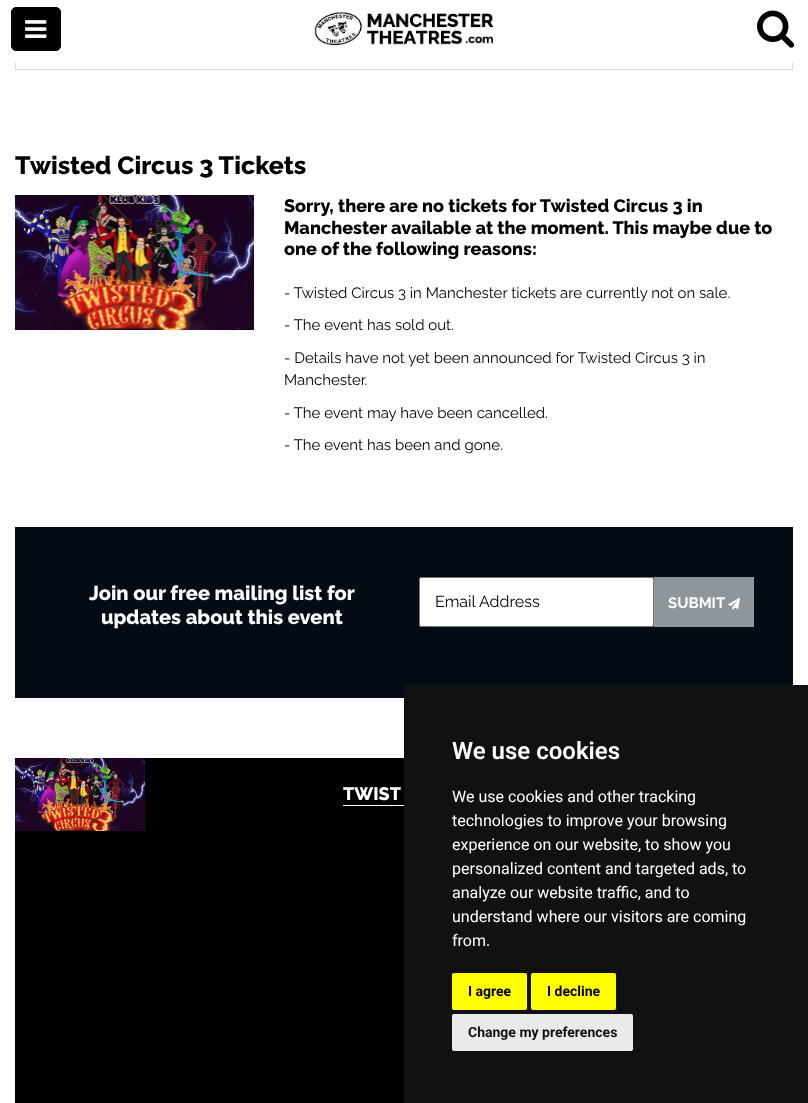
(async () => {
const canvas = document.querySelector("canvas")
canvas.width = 808
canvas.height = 1103
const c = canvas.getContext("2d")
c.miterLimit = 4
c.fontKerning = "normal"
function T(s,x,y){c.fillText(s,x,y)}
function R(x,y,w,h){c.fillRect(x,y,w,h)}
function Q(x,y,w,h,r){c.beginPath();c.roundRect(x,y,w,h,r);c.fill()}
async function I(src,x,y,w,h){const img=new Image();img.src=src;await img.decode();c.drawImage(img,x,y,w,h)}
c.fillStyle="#fff"
R(0,0,808,1103)
c.strokeStyle="#ddd"
c.strokeRect(15.5,-.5,777,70)
R(15,0,778,62)
c.fillStyle="#000"
c.beginPath()
c.roundRect(11.5,7.5,49,43,4.5)
c.fill()
c.strokeStyle="#000"
c.stroke()
await I("1.png",25,20,22,18)
await I("2.png",314,11,180,35)
await I("3.png",757,10,38,38)
c.font="800 25px Raleway"
T("Twisted Circus 3 Tickets",15,174)
await I("4.png",15,195,239,135)
c.font="800 18px Raleway"
T("Sorry, there are no tickets for Twisted Circus 3 in",284,212)
T("Manchester available at the moment. This maybe due to",284,234)
T("one of the following reasons:",284,255)
c.font="15px Raleway"
T("- Twisted Circus 3 in Manchester tickets are currently not on sale.",284,298)
T("- The event has sold out.",284,330)
T("- Details have not yet been announced for Twisted Circus 3 in",284,363)
T("Manchester.",284,385)
T("- The event may have been cancelled.",284,418)
T("- The event has been and gone.",284,450)
c.fillStyle="#030b14"
R(15,527,778,171)
c.font="800 20px Raleway"
c.fillStyle="#fff"
T("Join our free mailing list for",89,600)
T("updates about this event",101,624)
c.beginPath()
c.roundRect(419.5,577.5,234,49,1.5)
c.fill()
c.strokeStyle="#767676"
c.stroke()
c.font="16px Raleway"
c.fillStyle="#000"
T("Email Address",435,607)
c.fillStyle="#8f969b"
R(654,577,100,50)
c.font="bold 15px Raleway"
c.fillStyle="#fff"
T("SUBMIT",668,608)
await I("5.png",728,597,12,13)
c.fillStyle="#000"
R(15,758,389,345)
await I("6.png",15,758,130,73)
c.font="800 18px Raleway"
c.fillStyle="#fff"
T("TWIST",343,800)
R(343,805,61,1)
c.fillStyle="#111"
R(404,685,404,418)
c.font="600 24px Roboto"
c.fillStyle="#fff"
T("We use cookies",452,759)
c.font="16px Roboto"
T("We use cookies and other tracking",452,802)
T("technologies to improve your browsing",452,826)
T("experience on our website, to show you",452,850)
T("personalized content and targeted ads, to",452,874)
T("analyze our website traffic, and to",452,898)
T("understand where our visitors are coming",452,922)
T("from.",452,946)
c.fillStyle="#ff0"
Q(452,973,75,37,2)
c.font="bold 14px Roboto"
c.fillStyle="#000"
T("I agree",468,996)
c.fillStyle="#ff0"
Q(531,973,85,37,2)
c.fillStyle="#000"
T("I decline",547,996)
c.fillStyle="#eaeaea"
Q(452,1014,181,37,2)
c.fillStyle="#111"
T("Change my preferences",468,1037)
})()
